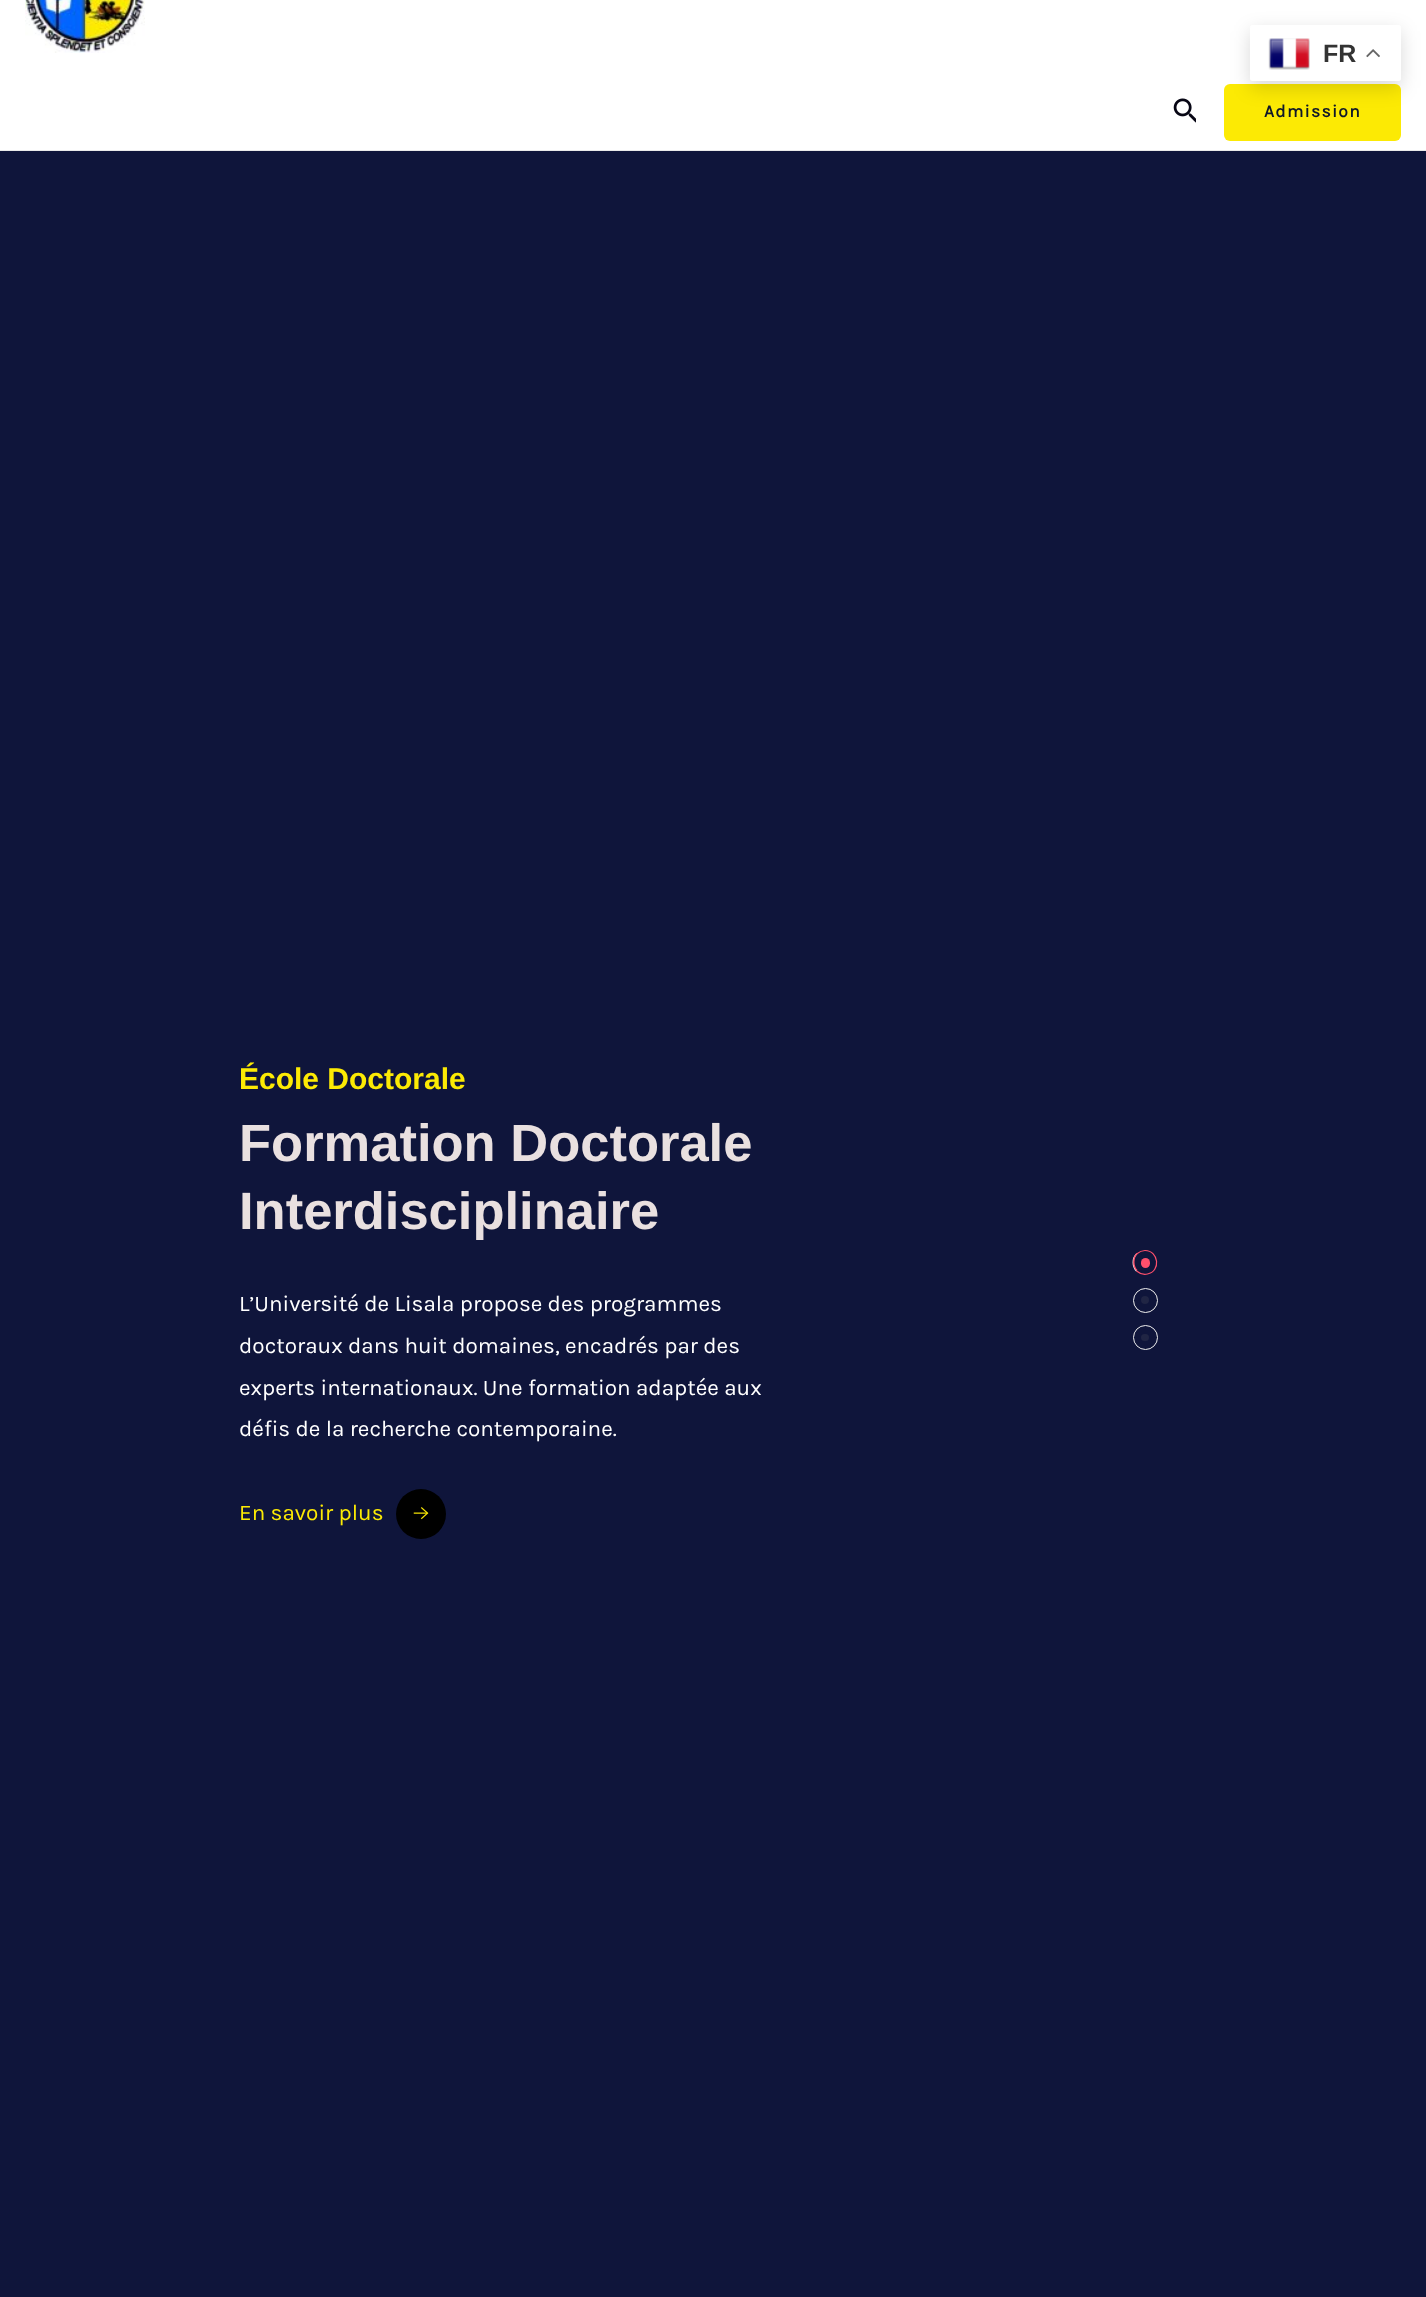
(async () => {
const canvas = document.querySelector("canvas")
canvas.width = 1426
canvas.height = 2297
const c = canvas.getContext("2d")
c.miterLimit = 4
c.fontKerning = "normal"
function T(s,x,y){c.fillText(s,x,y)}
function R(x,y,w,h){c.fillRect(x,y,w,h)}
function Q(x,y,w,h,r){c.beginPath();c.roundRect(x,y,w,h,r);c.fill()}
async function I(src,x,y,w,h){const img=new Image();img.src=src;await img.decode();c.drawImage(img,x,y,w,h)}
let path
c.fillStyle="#0f153b"
R(0,0,1426,2297)
c.fillStyle="#fff"
R(0,0,1426,150)
c.fillStyle="#fcea04"
Q(1224,84,177,57,6)
c.fillStyle="#00000026"
c.filter="blur(9.5px)"
c.beginPath()
c.roundRect(1250,31,151,57,2.5)
c.fill()
c.filter="none"
c.fillStyle="#fff"
Q(1250,25,151,56,2.5)
await I("1.png",1268,38,42,32)
c.font="bold 25px Liberation Sans"
c.fillStyle="#333"
T("FR",1323,62)
await I("2.png",1366,49,14,9)
await I("3.png",25,0,120,53)
c.fillStyle="#eaeaea"
R(0,150,1426,1)
await I("4.png",1173,98,23,25)
c.letterSpacing="1.25px"
c.font="bold 17.5px Karla"
c.fillStyle="#0f172a"
T("Admission",1264,117)
c.letterSpacing="0px"
c.font="bold 30px Liberation Sans"
c.fillStyle="#fcea04"
T("École Doctorale",239,1089)
c.font="bold 52.5px Liberation Sans"
c.fillStyle="#e9e0e0"
T("Formation Doctorale",239,1161)
T("Interdisciplinaire",239,1229)
c.font="22.5px Karla"
c.fillStyle="#fff"
T("L’Université de Lisala propose des programmes",239,1311)
T("doctoraux dans huit domaines, encadrés par des",239,1353)
T("experts internationaux. Une formation adaptée aux",239,1395)
T("défis de la recherche contemporaine.",239,1436)
c.fillStyle="#fcea04"
T("En savoir plus",239,1520)
c.fillStyle="#000"
c.beginPath()
c.arc(421,1514,25,0,7)
c.fill()
await I("5.png",413,1507,16,13)
c.fillStyle="#fe506c"
Q(1141,1258,9,10,4.5)
path = new Path2D("M1136.5 1254c2.5-2 5.5-3.5 8.5-3.5c14 0 16 21 2.5 23.5c-4 1-8-.5-11-3")
c.strokeStyle="#fe506c"
c.lineWidth=1.2
c.stroke(path)
path = new Path2D("M1136.5 1271c-4.5-4.5-4.5-12.5 0-17")
c.strokeStyle="#eee"
c.stroke(path)
path = new Path2D("M1134.5 1262c0 3.5 1 6 3 8l-1 1c-4.5-4.5-4.5-13.5 0-18l1 1c-2 2-3 4.5-3 8z")
c.fill(path)
c.fillStyle="#202544"
c.beginPath()
c.arc(1145,1300,4,0,7)
c.fill()
c.beginPath()
c.arc(1145.5,1300.5,12,0,7)
c.lineWidth=1
c.stroke()
Q(1141,1334,8,7,3.5)
c.beginPath()
c.arc(1145.5,1337.5,12,0,7)
c.stroke()
})()
